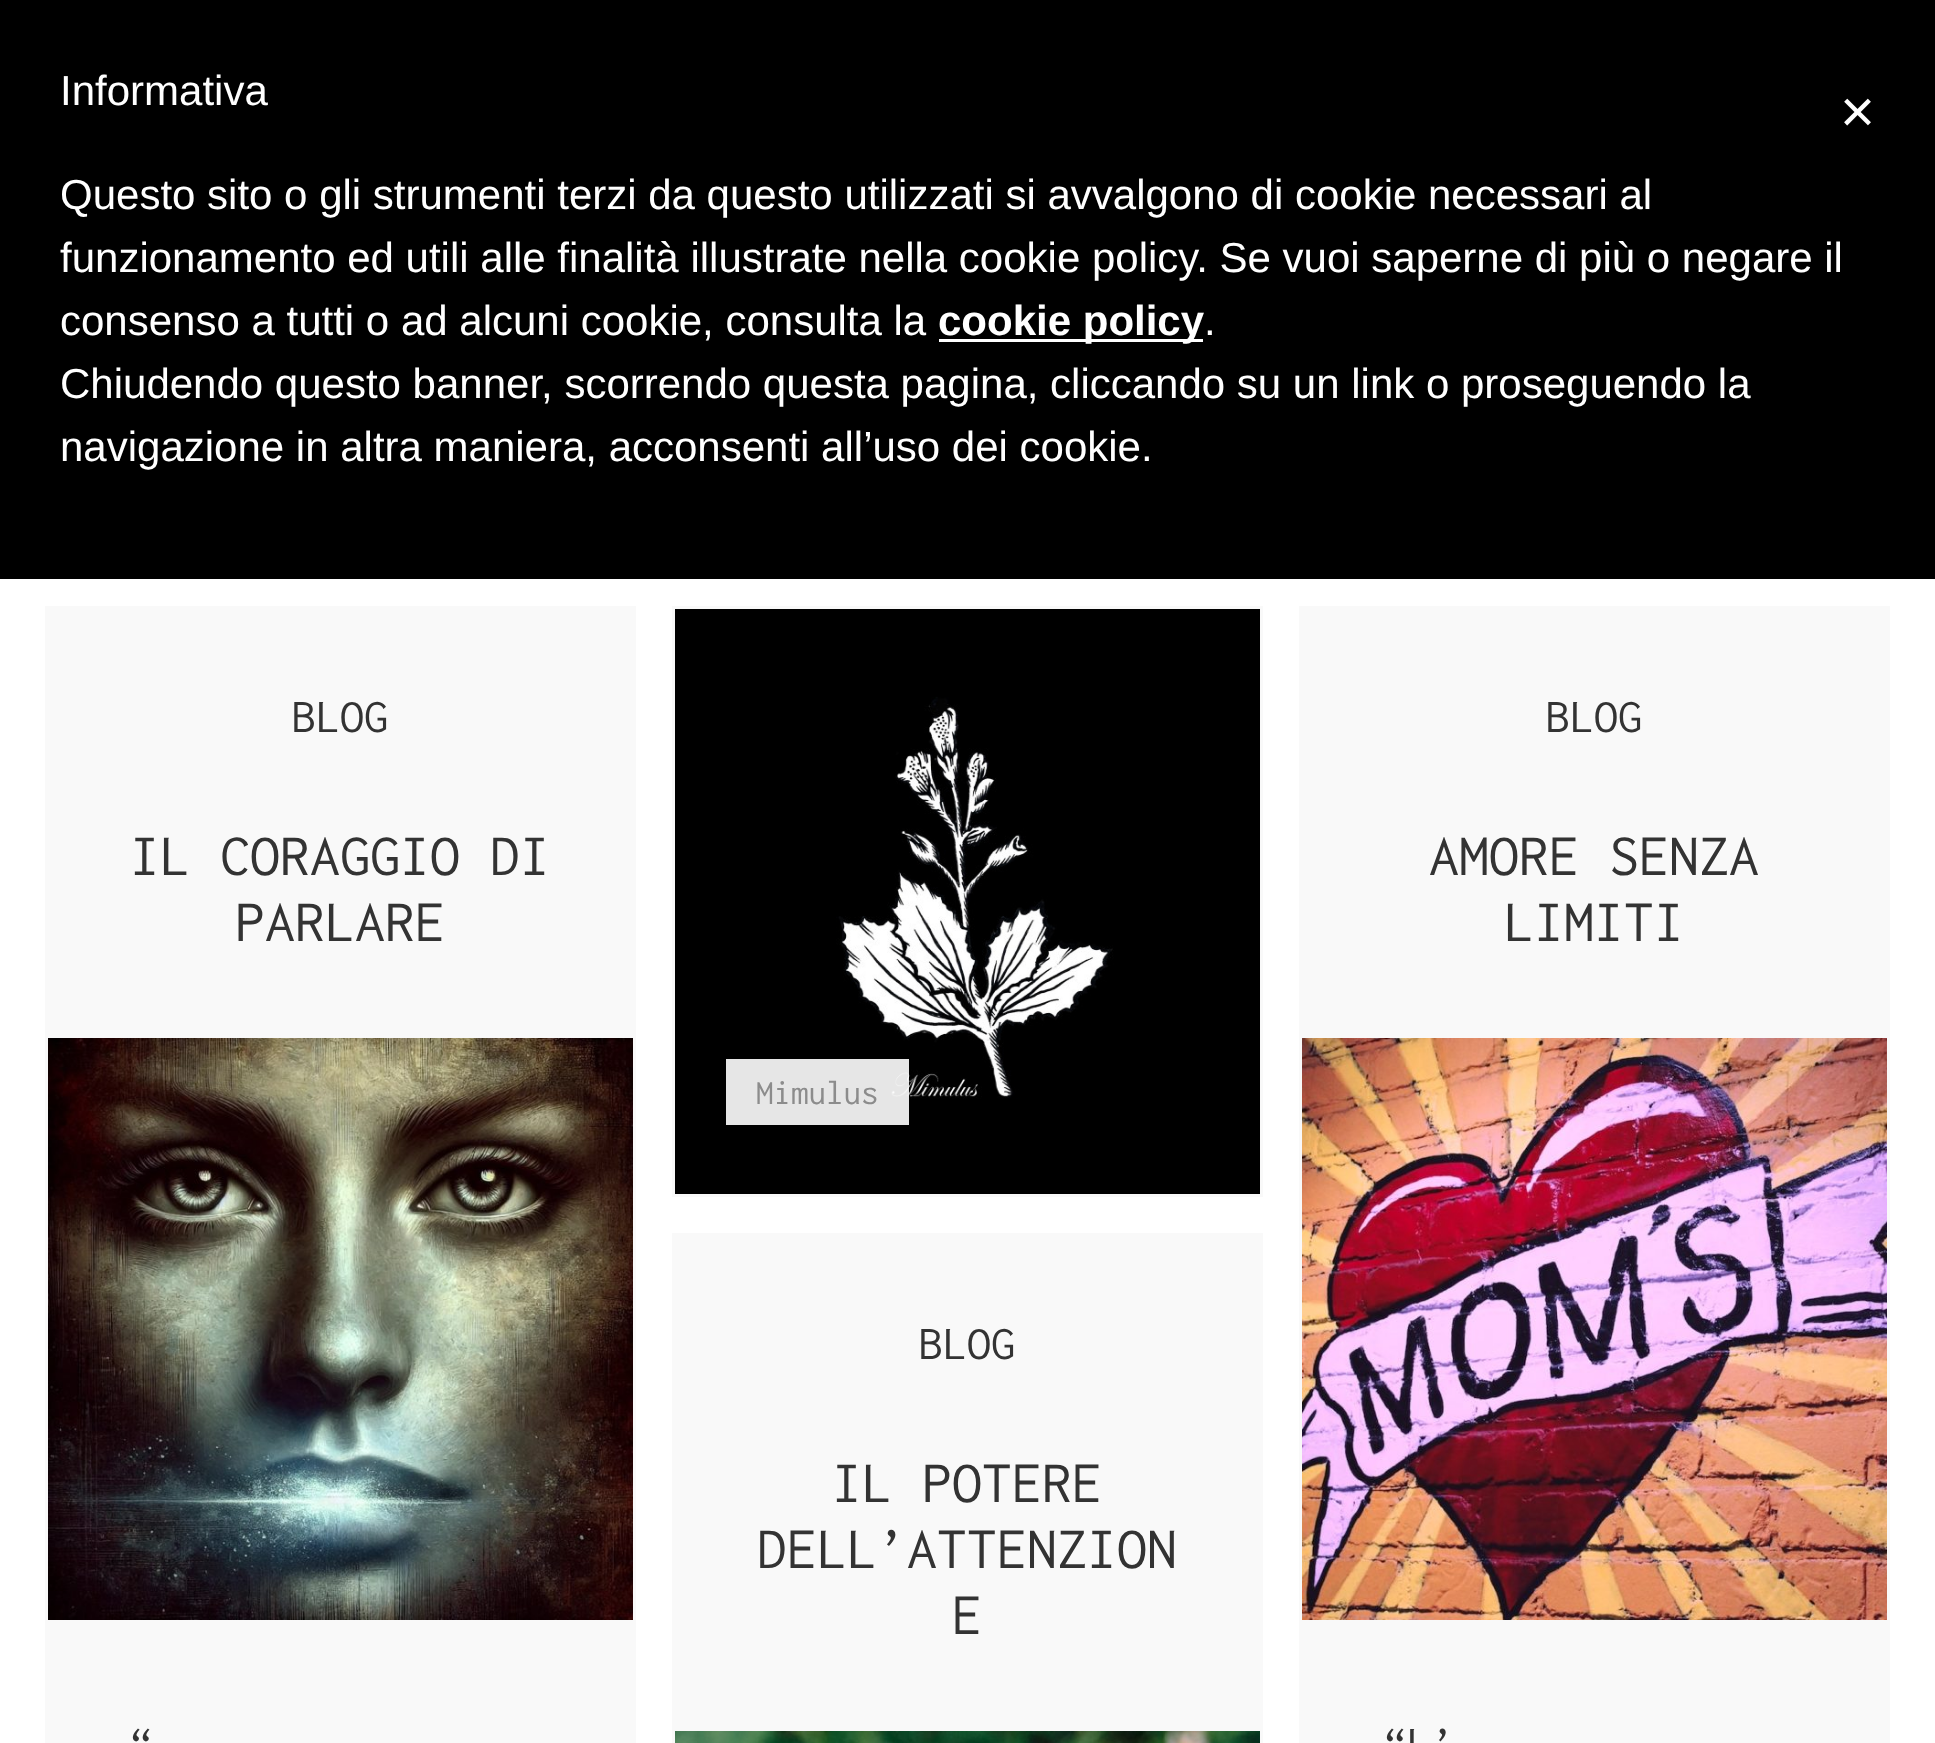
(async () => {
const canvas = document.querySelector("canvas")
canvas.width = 1935
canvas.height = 1743
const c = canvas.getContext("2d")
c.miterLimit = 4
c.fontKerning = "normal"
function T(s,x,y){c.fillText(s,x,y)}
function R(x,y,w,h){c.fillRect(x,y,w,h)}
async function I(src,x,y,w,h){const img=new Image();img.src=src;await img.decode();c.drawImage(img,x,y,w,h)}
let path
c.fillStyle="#fff"
R(0,0,1935,1743)
c.fillStyle="#000"
R(0,0,1935,579)
c.font="42px Liberation Sans"
c.fillStyle="#fff"
T("Informativa",60,105)
T("Questo sito o gli strumenti terzi da questo utilizzati si avvalgono di cookie necessari al",60,209)
T("funzionamento ed utili alle finalità illustrate nella cookie policy. Se vuoi saperne di più o negare il",60,272)
T("consenso a tutti o ad alcuni cookie, consulta la",60,335)
R(939,339,264,3)
c.font="bold 42px Liberation Sans"
T("cookie policy",938,335)
c.font="42px Liberation Sans"
T(".",1204,335)
T("Chiudendo questo banner, scorrendo questa pagina, cliccando su un link o proseguendo la",60,398)
T("navigazione in altra maniera, acconsenti all’uso dei cookie.",60,461)
c.font="60px Liberation Sans"
T("×",1840,132)
c.fillStyle="#f9f9f9"
R(45,606,591,1137)
c.font="48px Inconsolata"
c.fillStyle="#333"
T("BLOG",292,732)
c.font="60px Inconsolata"
T("IL CORAGGIO DI",130,875)
T("PARLARE",235,941)
await I("1.png",48,1038,585,582)
c.font="48px Inconsolata"
T("“",129,1759)
c.fillStyle="#f9f9f9"
R(672,606,591,591)
await I("2.png",675,609,585,585)
c.fillStyle="#ffffffe6"
path = new Path2D("M756 1059v15h123v36h-123v15h153v-66z")
c.fill(path)
c.fillStyle="#e6e6e6"
path = new Path2D("M726 1059v66h153v-15h-123v-36h123v-15z")
c.fill(path)
R(756,1074,123,36)
c.font="35px Inconsolata"
c.fillStyle="#8c8c8c"
T("Mimulus",756,1104)
c.fillStyle="#f9f9f9"
R(1299,606,591,1137)
c.font="48px Inconsolata"
c.fillStyle="#333"
T("BLOG",1546,732)
c.font="60px Inconsolata"
T("AMORE SENZA",1429,875)
T("LIMITI",1504,941)
await I("3.png",1302,1038,585,582)
c.font="48px Inconsolata"
T("“L’",1383,1759)
c.fillStyle="#f9f9f9"
R(672,1233,591,510)
c.fillStyle="#333"
T("BLOG",919,1359)
c.font="60px Inconsolata"
T("IL POTERE",832,1502)
T("DELL’ATTENZION",757,1568)
T("E",952,1634)
await I("4.png",675,1731,585,12)
})()
